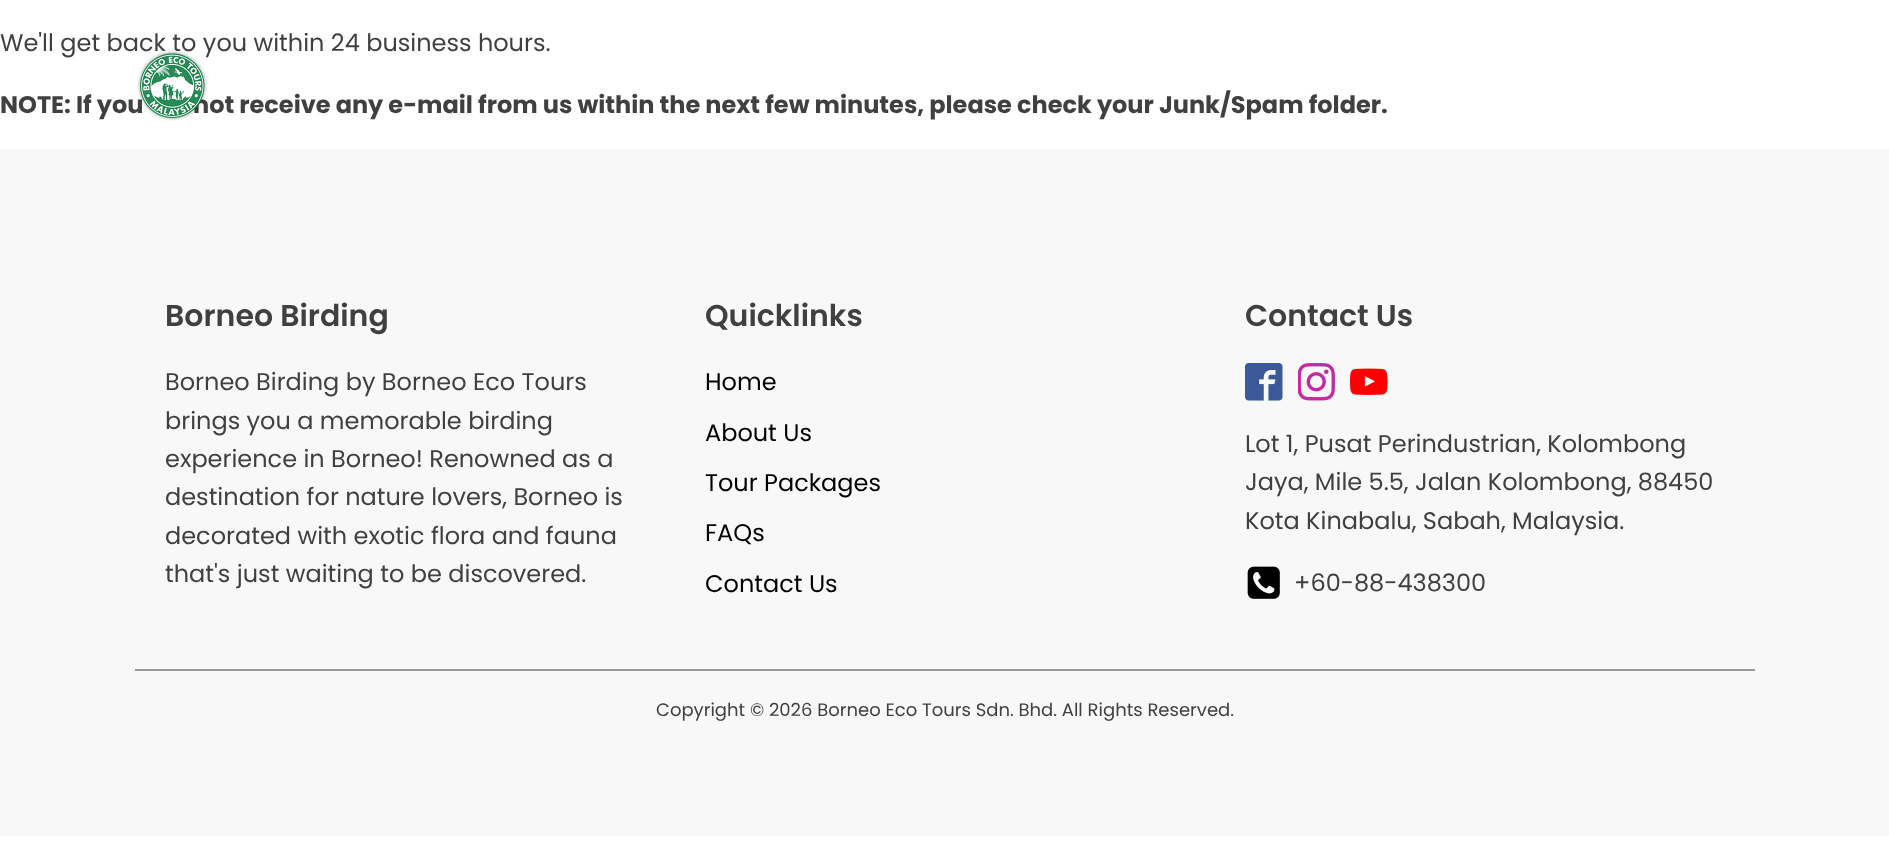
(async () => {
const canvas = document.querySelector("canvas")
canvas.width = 1889
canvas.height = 867
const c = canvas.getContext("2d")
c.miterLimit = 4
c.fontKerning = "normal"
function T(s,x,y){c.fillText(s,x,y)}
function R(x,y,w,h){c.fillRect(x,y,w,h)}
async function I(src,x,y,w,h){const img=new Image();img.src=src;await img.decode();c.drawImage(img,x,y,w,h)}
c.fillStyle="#fff"
R(0,0,1889,867)
c.font="24px Poppins"
c.fillStyle="#404040"
T("We'll get back to you within 24 business hours.",0,51)
c.font="bold 24px Poppins"
T("NOTE: If you",0,113)
T("not receive any e-mail from us within the next few minutes, please check your Junk/Spam folder.",193,113)
await I("1.png",137,50,70,71)
c.fillStyle="#f8f8f8"
R(0,149,1889,687)
c.font="600 30px Poppins"
c.fillStyle="#404040"
T("Borneo Birding",165,326)
c.font="24px Poppins"
T("Borneo Birding by Borneo Eco Tours",165,390)
T("brings you a memorable birding",165,429)
T("experience in Borneo! Renowned as a",165,467)
T("destination for nature lovers, Borneo is",165,505)
T("decorated with exotic flora and fauna",165,544)
T("that's just waiting to be discovered.",165,582)
c.font="600 30px Poppins"
T("Quicklinks",705,326)
c.font="24px Poppins"
c.fillStyle="#000"
T("Home",705,390)
T("About Us",705,441)
T("Tour Packages",705,491)
T("FAQs",705,541)
T("Contact Us",705,592)
c.font="600 30px Poppins"
c.fillStyle="#404040"
T("Contact Us",1245,326)
await I("2.png",1245,363,38,38)
await I("3.png",1298,363,37,38)
await I("4.png",1350,368,38,27)
c.font="24px Poppins"
T("Lot 1, Pusat Perindustrian, Kolombong",1245,452)
T("Jaya, Mile 5.5, Jalan Kolombong, 88450",1245,490)
T("Kota Kinabalu, Sabah, Malaysia.",1245,529)
await I("5.png",1247,566,33,33)
T("+60-88-438300",1294,591)
c.fillStyle="#999"
R(135,669,1620,2)
c.font="18px Poppins"
c.fillStyle="#404040"
T("Copyright © 2026 Borneo Eco Tours Sdn. Bhd. All Rights Reserved.",656,716)
})()
